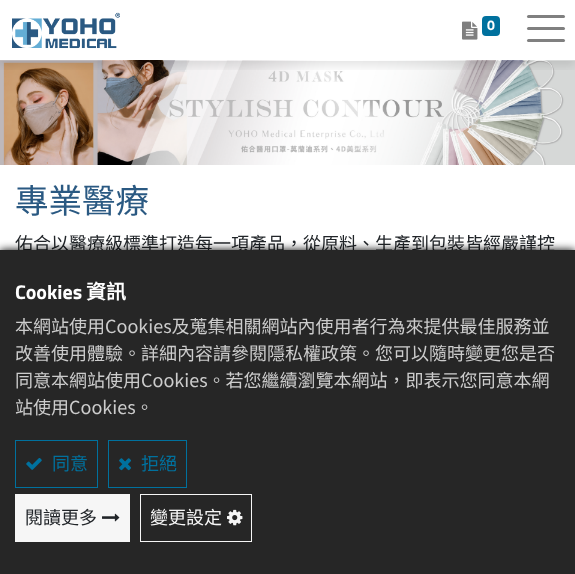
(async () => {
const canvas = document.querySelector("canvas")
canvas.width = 575
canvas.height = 574
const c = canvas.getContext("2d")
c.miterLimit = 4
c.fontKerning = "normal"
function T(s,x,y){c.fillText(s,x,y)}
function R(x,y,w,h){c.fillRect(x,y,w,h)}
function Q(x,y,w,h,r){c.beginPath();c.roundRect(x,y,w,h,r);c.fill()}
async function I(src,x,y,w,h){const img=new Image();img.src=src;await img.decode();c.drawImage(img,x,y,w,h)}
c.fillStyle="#fff"
R(0,0,575,574)
await I("3.png",0,60,575,105)
c.save()
c.beginPath()
c.rect(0,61,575,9)
c.clip()
c.fillStyle="#0000001a"
c.filter="blur(5px)"
c.beginPath()
c.rect(0,5,575,61)
c.fill()
c.filter="none"
c.restore()
await I("1.png",12,12,108,37)
await I("2.png",462,21,16,19)
c.fillStyle="#00719e"
Q(482,16,18,20,4)
c.font="bold 14px Titillium Web"
c.fillStyle="#fff"
T("0",487,30)
c.fillStyle="#808080"
Q(527,15,38,3,1.5)
Q(527,27,38,3,1.5)
Q(527,39,38,3,1.5)
c.font="33.5px Noto Sans CJK TC"
c.fillStyle="#2a5982"
T("專業醫療",15,213)
c.font="18px Noto Sans TC"
c.fillStyle="#212529"
T("佑合以醫療級標準打造每一項產品，從原料、生產到包裝皆經嚴謹控",15,250)
c.fillStyle="#000"
c.filter="blur(4px)"
c.beginPath()
c.rect(0,250,575,324)
c.fill()
c.filter="none"
c.fillStyle="#262626"
R(0,250,575,324)
c.font="bold 20px Titillium Web"
c.fillStyle="#fff"
T("Cookies",15,299)
c.font="bold 20px Noto Sans CJK TC"
T("資訊",86,299)
c.font="18px Noto Sans TC"
c.fillStyle="#ccc"
T("本網站使用Cookies及蒐集相關網站內使用者行為來提供最佳服務並",15,333)
T("改善使用體驗。詳細內容請參閱隱私權政策。您可以隨時變更您是否",15,360)
T("同意本網站使用Cookies。若您繼續瀏覽本網站，即表示您同意本網",15,387)
T("站使用Cookies。",15,414)
c.strokeStyle="#00719e"
c.strokeRect(15.5,440.5,82,47)
await I("4.png",26,458,16,12)
c.font="18px Noto Sans CJK TC"
c.fillStyle="#00719e"
T("同意",52,470)
c.strokeRect(108.5,440.5,78,47)
await I("5.png",119,458,12,13)
T("拒絕",141,470)
c.fillStyle="#f6f6f6"
R(15,494,115,48)
c.fillStyle="#212529"
T("閱讀更多",25,524)
await I("6.png",102,513,18,9)
c.strokeStyle="#f6f6f6"
c.strokeRect(140.5,494.5,111,47)
c.fillStyle="#f6f6f6"
T("變更設定",150,524)
await I("7.png",227,509,16,17)
})()
